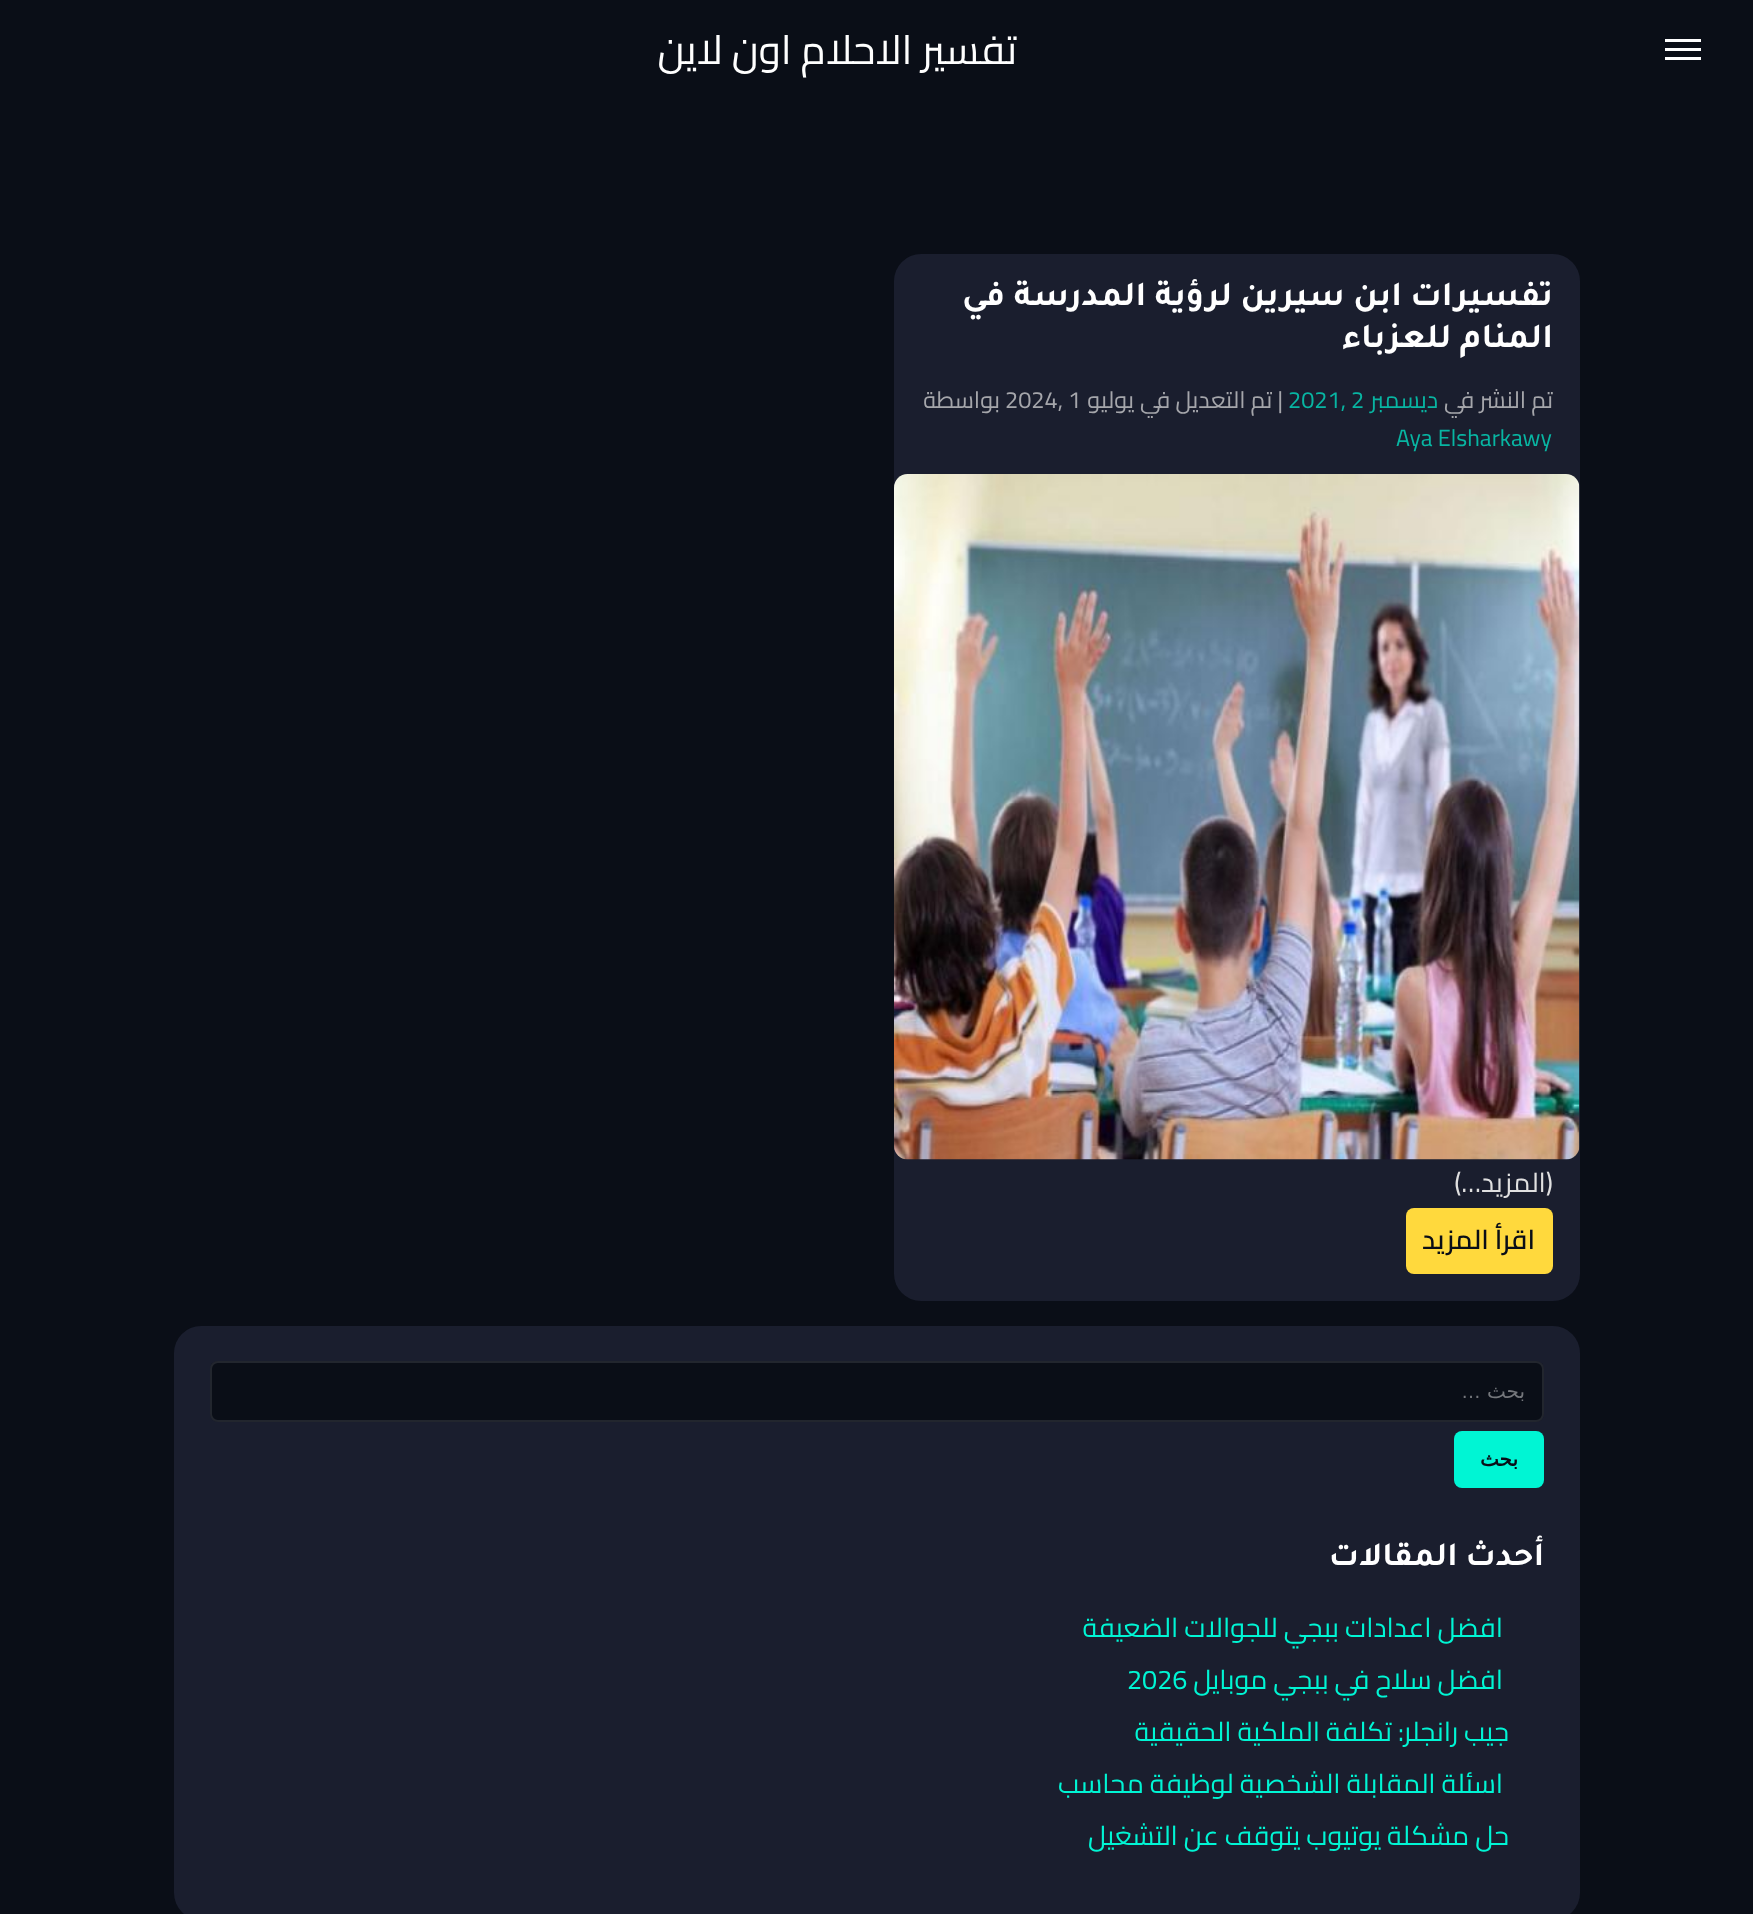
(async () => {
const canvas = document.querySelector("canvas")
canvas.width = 1753
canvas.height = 1914
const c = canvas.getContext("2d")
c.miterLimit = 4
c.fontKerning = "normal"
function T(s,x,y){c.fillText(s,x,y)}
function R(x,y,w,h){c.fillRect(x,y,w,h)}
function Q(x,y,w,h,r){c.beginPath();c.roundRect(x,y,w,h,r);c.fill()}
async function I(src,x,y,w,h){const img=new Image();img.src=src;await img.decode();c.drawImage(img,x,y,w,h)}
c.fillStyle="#0a0e17"
R(0,0,1753,1914)
c.fillStyle="#fff"
R(1665,48,36,3)
R(1665,39,36,3)
R(1665,57,36,3)
c.direction="rtl"
c.font="40.5px Cairo"
T("تفسير الاحلام اون لاين",1017,64)
c.fillStyle="#1a1e2e"
Q(894,254,686,1047,27)
c.font="bold 35.1px Tajawal"
c.fillStyle="#fff"
T("تفسيرات ابن سيرين لرؤية المدرسة في",1553,305)
T("المنام للعزباء",1553,347)
c.font="23.5px Cairo"
c.fillStyle="#a5a6ab"
T("تم النشر في",1553,408)
c.fillStyle="#08b5a2"
T("ديسمبر",1438,408)
c.direction="ltr"
T("2021, 2",1288,408)
c.direction="rtl"
c.fillStyle="#a5a6ab"
T("| تم التعديل في",1283,408)
T("يوليو",1134,408)
c.direction="ltr"
T("2024, 1",1005,408)
c.direction="rtl"
T("بواسطة",1000,408)
c.direction="ltr"
c.fillStyle="#08b5a2"
T("Aya Elsharkawy",1396,446)
await I("1.png",894,474,686,686)
c.direction="rtl"
c.font="27px Cairo"
c.fillStyle="#e0e0e0"
T("(المزيد…)",1553,1192)
c.fillStyle="#ffd93d"
Q(1406,1208,147,66,8)
c.font="600 27px Cairo"
c.fillStyle="#0a0e17"
T("اقرأ المزيد",1535,1249)
c.fillStyle="#1a1e2e"
Q(174,1326,1406,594,27)
c.fillStyle="#0a0e17"
Q(210,1361,1334,61,8)
c.beginPath()
c.roundRect(211,1362,1332,59,7)
c.strokeStyle="#ffffff1a"
c.lineWidth=2
c.stroke()
c.font="20px DejaVu Sans"
c.fillStyle="#75777c"
T("بحث",1525,1398)
c.font="20px Liberation Sans"
T("…",1481,1398)
c.fillStyle="#00f5d4"
Q(1454,1431,90,57,8)
c.font="bold 20px DejaVu Sans"
c.fillStyle="#0a0e17"
T("بحث",1518,1466)
c.font="bold 33.75px Tajawal"
c.fillStyle="#fff"
T("أحدث المقالات",1544,1565)
c.font="27px Cairo"
c.fillStyle="#00f5d4"
T("افضل اعدادات ببجي للجوالات الضعيفة",1503,1637)
T("افضل سلاح في ببجي موبايل",1503,1689)
c.direction="ltr"
T("2026",1127,1689)
c.direction="rtl"
T("جيب رانجلر: تكلفة الملكية الحقيقية",1509,1741)
T("اسئلة المقابلة الشخصية لوظيفة محاسب",1503,1793)
T("حل مشكلة يوتيوب يتوقف عن التشغيل",1509,1845)
})()
